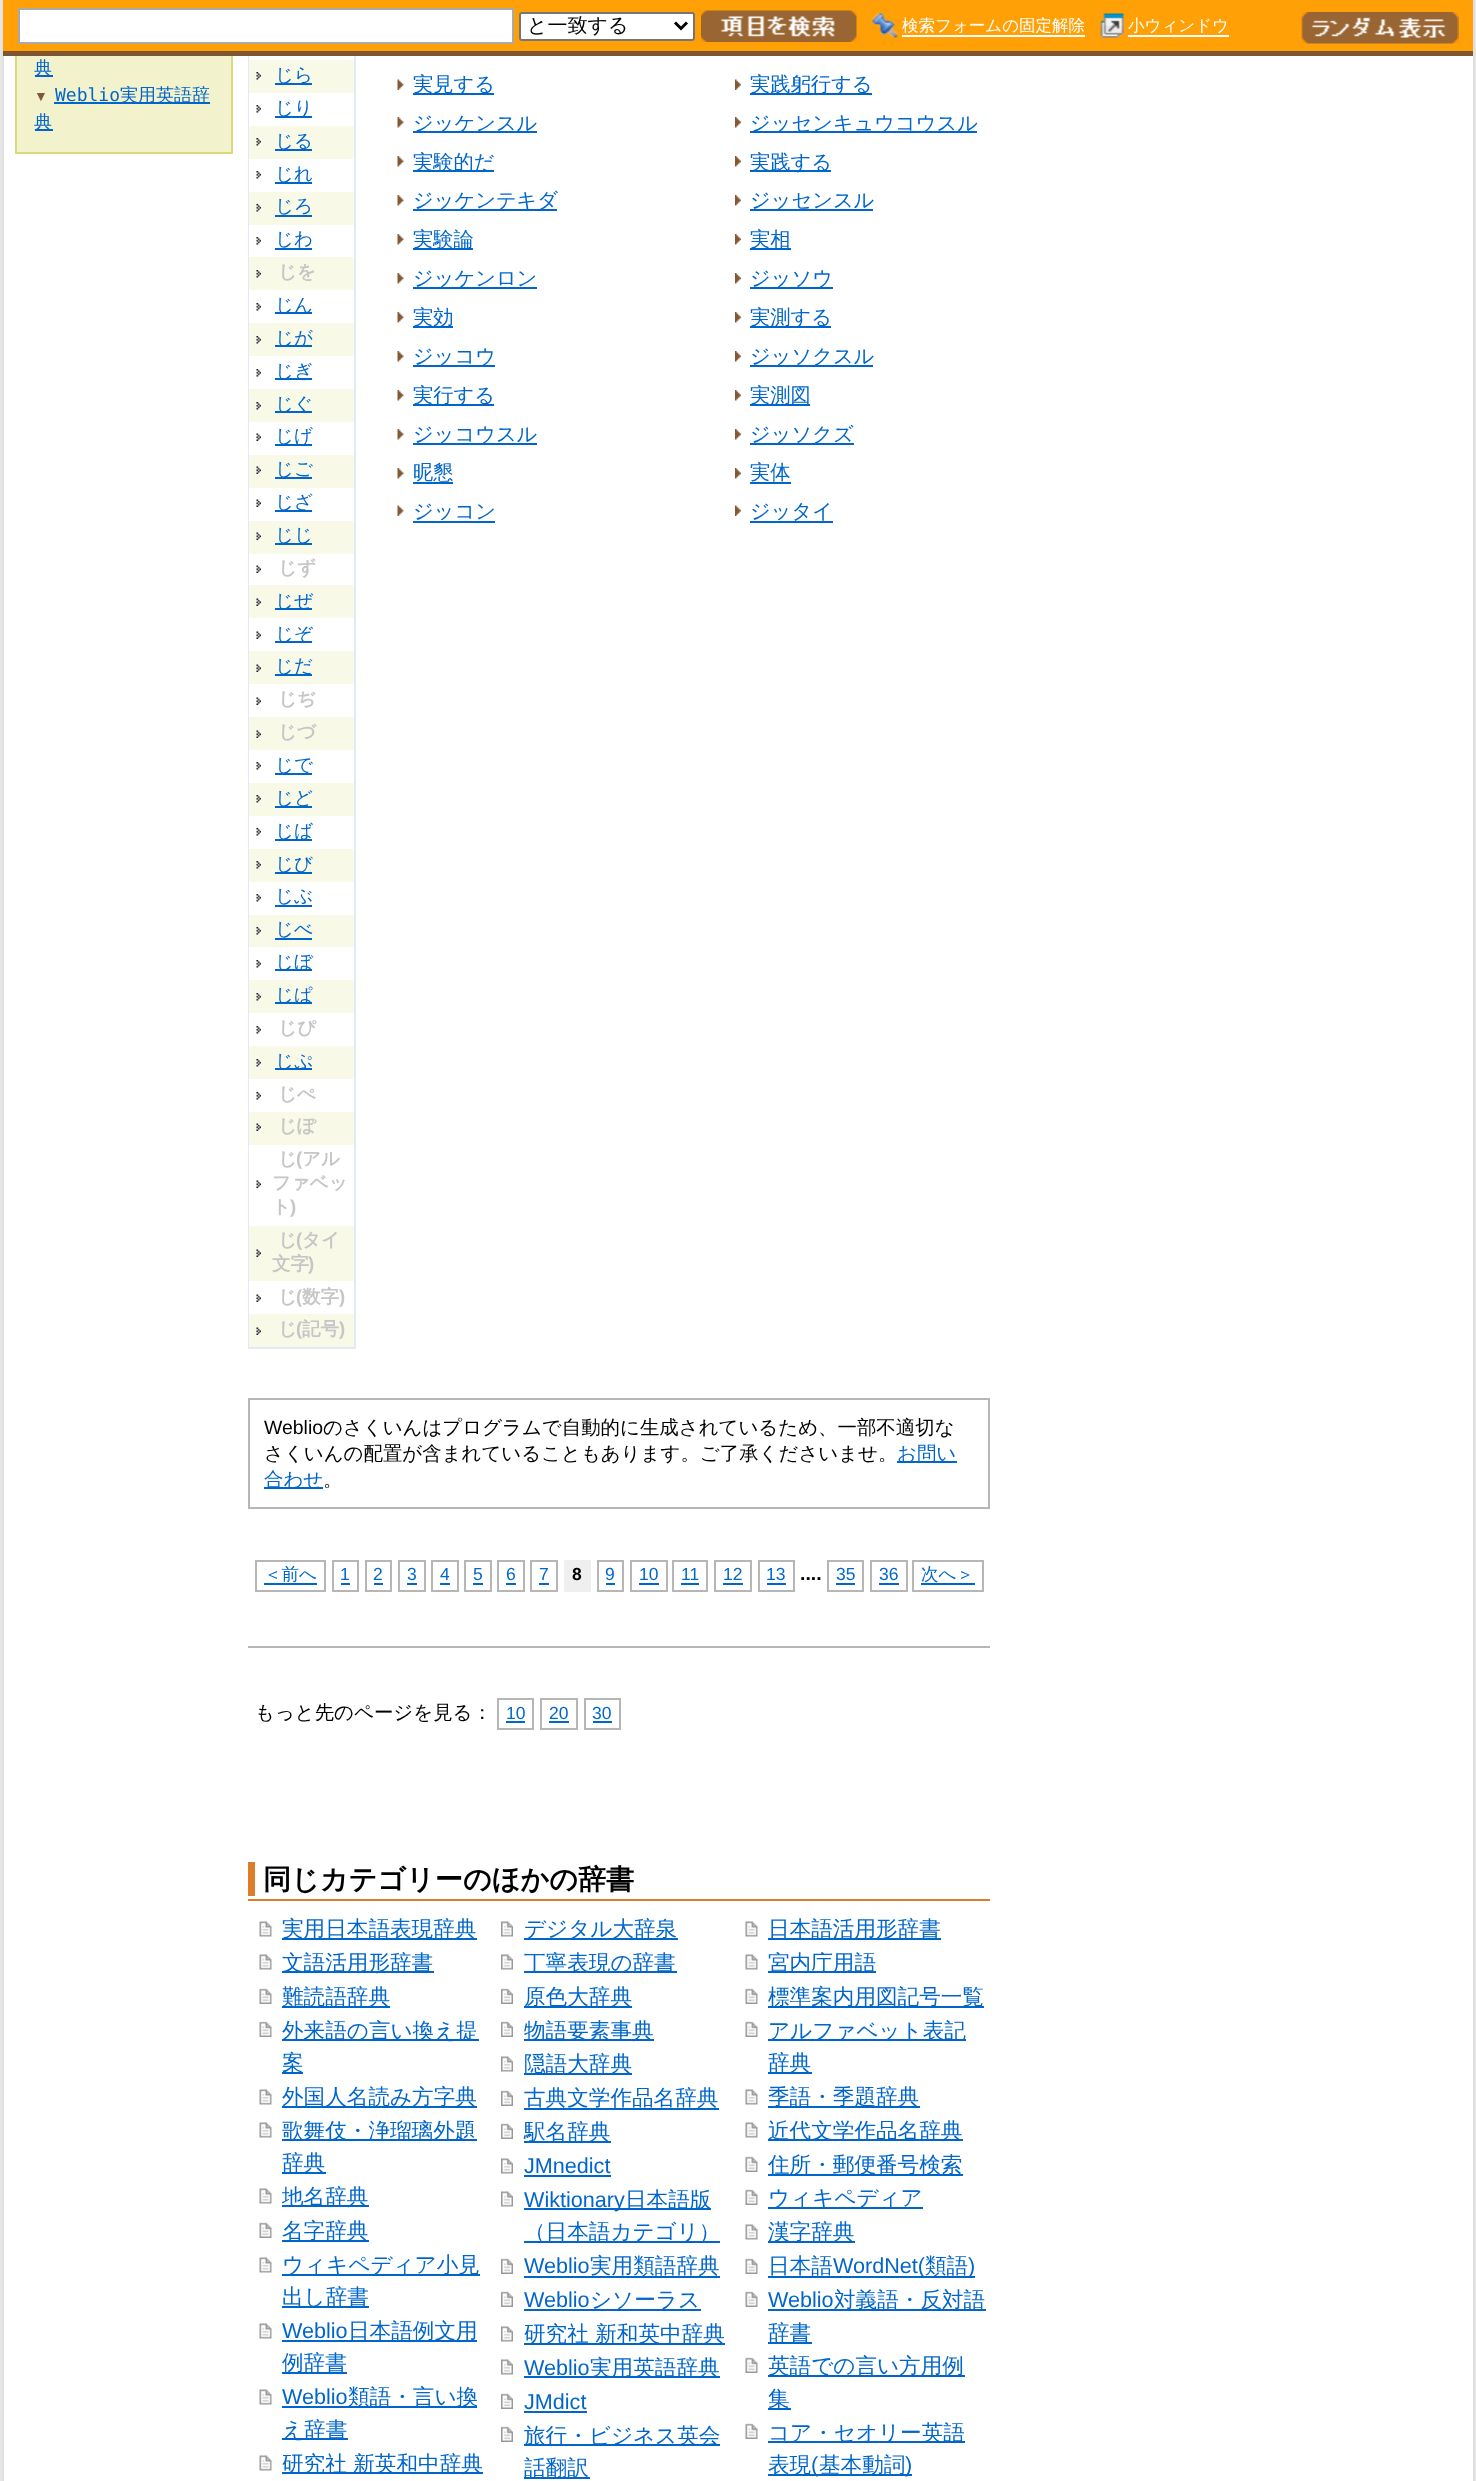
(async () => {
const canvas = document.querySelector("canvas")
canvas.width = 1476
canvas.height = 2481
const c = canvas.getContext("2d")
c.miterLimit = 4
c.fontKerning = "normal"
function T(s,x,y){c.fillText(s,x,y)}
function R(x,y,w,h){c.fillRect(x,y,w,h)}
async function I(src,x,y,w,h){const img=new Image();img.src=src;await img.decode();c.drawImage(img,x,y,w,h)}
let path
c.fillStyle="#e6e6e6"
R(0,0,1476,2481)
c.fillStyle="#fff"
R(4,56,1469,2425)
c.fillStyle="#e0e0e0"
R(1473,0,2,2481)
R(2,0,2,2481)
c.strokeStyle="#e2eaf8"
c.lineWidth=2
c.strokeRect(249,-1,106,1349)
c.fillStyle="#ffa007"
R(3,0,1470,51)
c.fillStyle="#7e5632"
R(3,51,1470,5)
c.fillStyle="#fff"
R(20,10,492,32)
c.fillStyle="#a9a9a9"
R(18,8,495,2)
R(512,8,2,36)
R(18,42,495,2)
R(18,8,2,36)
c.fillStyle="#fff"
c.beginPath()
c.roundRect(520,13,174,27,2)
c.fill()
c.strokeStyle="#767676"
c.stroke()
path = new Path2D("M675 22.5l6 6l6-6")
c.strokeStyle="#000"
c.lineWidth=3
c.stroke(path)
c.font="500 20px WenQuanYi Zen Hei"
c.fillStyle="#000"
T("と一致する",527,32)
await I("1.png",701,10,156,32)
await I("2.png",872,13,26,25)
c.font="500 16.5px WenQuanYi Zen Hei"
c.fillStyle="#fff"
T("検索フォームの固定解除",902,31)
R(902,35,183,2)
await I("3.png",1100,13,24,25)
T("小ウィンドウ",1128,31)
R(1128,35,101,2)
await I("4.png",1301,12,158,32)
c.fillStyle="#f2f2cc"
R(17,56,214,96)
c.fillStyle="#dada7b"
R(231,56,2,97)
R(15,56,2,79)
c.fillStyle="#06c"
R(35,75,18,2)
c.font="500 18px WenQuanYi Zen Hei"
T("典",34,74)
c.font="14px Liberation Sans"
c.fillStyle="#825934"
T("▼",34,101)
c.font="18px DejaVu Sans Mono"
c.fillStyle="#06c"
T("Weblio",55,101)
R(54,102,156,2)
c.font="500 18px WenQuanYi Zen Hei"
T("実用英語辞",120,101)
R(35,129,18,2)
T("典",34,128)
c.fillStyle="#dada7b"
R(15,152,218,2)
R(15,135,2,18)
c.fillStyle="#fff"
R(249,56,1,4)
c.fillStyle="#f9f9e8"
R(249,60,105,33)
await I("5.png",256,72,5,8)
c.fillStyle="#06c"
R(275,83,37,2)
c.font="500 18.5px WenQuanYi Zen Hei"
T("じら",275,81)
c.fillStyle="#fff"
R(249,93,1,33)
await I("6.png",256,105,5,8)
c.fillStyle="#06c"
R(275,116,37,2)
T("じり",275,114)
c.fillStyle="#f9f9e8"
R(249,126,105,33)
await I("5.png",256,138,5,8)
c.fillStyle="#06c"
R(275,149,37,2)
T("じる",275,147)
c.fillStyle="#fff"
R(249,159,1,33)
await I("6.png",256,171,5,8)
c.fillStyle="#06c"
R(275,182,37,2)
T("じれ",275,180)
c.fillStyle="#f9f9e8"
R(249,192,105,33)
await I("5.png",256,204,5,8)
c.fillStyle="#06c"
T("じろ",275,212)
R(275,215,37,2)
c.fillStyle="#fff"
R(249,225,1,32)
await I("6.png",256,237,5,8)
c.fillStyle="#06c"
T("じわ",275,245)
R(275,248,37,2)
c.fillStyle="#f9f9e8"
R(249,257,105,33)
await I("5.png",256,270,5,8)
c.font="bold 18.5px WenQuanYi Zen Hei"
c.fillStyle="#c5c6c5"
T("じを",278,278)
c.fillStyle="#fff"
R(249,290,1,33)
await I("6.png",256,303,5,8)
c.fillStyle="#06c"
R(275,312,37,2)
c.font="500 18.5px WenQuanYi Zen Hei"
T("じん",275,311)
c.fillStyle="#f9f9e8"
R(249,323,105,33)
await I("5.png",256,336,5,8)
c.fillStyle="#06c"
R(275,345,37,2)
T("じが",275,344)
c.fillStyle="#fff"
R(249,356,1,33)
await I("6.png",256,369,5,8)
c.fillStyle="#06c"
R(275,378,37,2)
T("じぎ",275,377)
c.fillStyle="#f9f9e8"
R(249,389,105,33)
await I("5.png",256,402,5,8)
c.fillStyle="#06c"
R(275,411,37,2)
T("じぐ",275,410)
c.fillStyle="#fff"
R(249,422,1,33)
await I("7.png",256,433,5,8)
c.fillStyle="#06c"
R(275,444,37,2)
T("じげ",275,442)
c.fillStyle="#f9f9e8"
R(249,455,105,33)
await I("8.png",256,466,5,8)
c.fillStyle="#06c"
R(275,477,37,2)
T("じご",275,475)
c.fillStyle="#fff"
R(249,488,1,33)
await I("7.png",256,499,5,8)
c.fillStyle="#06c"
R(275,510,37,2)
T("じざ",275,508)
c.fillStyle="#f9f9e8"
R(249,521,105,33)
await I("8.png",256,532,5,8)
c.fillStyle="#06c"
R(275,543,37,2)
T("じじ",275,541)
c.fillStyle="#fff"
R(249,554,1,31)
await I("7.png",256,565,5,8)
c.font="bold 18.5px WenQuanYi Zen Hei"
c.fillStyle="#c5c6c5"
T("じず",278,574)
c.fillStyle="#f9f9e8"
R(249,585,105,33)
await I("8.png",256,598,5,8)
c.fillStyle="#06c"
R(275,608,37,2)
c.font="500 18.5px WenQuanYi Zen Hei"
T("じぜ",275,607)
c.fillStyle="#fff"
R(249,618,1,33)
await I("7.png",256,631,5,8)
c.fillStyle="#06c"
R(275,641,37,2)
T("じぞ",275,640)
c.fillStyle="#f9f9e8"
R(249,651,105,33)
await I("8.png",256,664,5,8)
c.fillStyle="#06c"
R(275,674,37,2)
T("じだ",275,672)
c.fillStyle="#fff"
R(249,684,1,33)
await I("7.png",256,697,5,8)
c.font="bold 18.5px WenQuanYi Zen Hei"
c.fillStyle="#c5c6c5"
T("じぢ",278,705)
c.fillStyle="#f9f9e8"
R(249,717,105,33)
await I("8.png",256,730,5,8)
c.fillStyle="#c5c6c5"
T("じづ",278,738)
c.fillStyle="#fff"
R(249,750,1,33)
await I("6.png",256,762,5,8)
c.fillStyle="#06c"
R(275,773,37,2)
c.font="500 18.5px WenQuanYi Zen Hei"
T("じで",275,771)
c.fillStyle="#f9f9e8"
R(249,783,105,33)
await I("5.png",256,795,5,8)
c.fillStyle="#06c"
R(275,806,37,2)
T("じど",275,804)
c.fillStyle="#fff"
R(249,816,1,33)
await I("6.png",256,828,5,8)
c.fillStyle="#06c"
R(275,839,37,2)
T("じば",275,837)
c.fillStyle="#f9f9e8"
R(249,849,105,33)
await I("5.png",256,861,5,8)
c.fillStyle="#06c"
R(275,872,37,2)
T("じび",275,870)
c.fillStyle="#fff"
R(249,882,1,33)
await I("6.png",256,894,5,8)
c.fillStyle="#06c"
T("じぶ",275,902)
R(275,905,37,2)
c.fillStyle="#f9f9e8"
R(249,915,105,32)
await I("5.png",256,927,5,8)
c.fillStyle="#06c"
T("じべ",275,935)
R(275,938,37,2)
c.fillStyle="#fff"
R(249,947,1,33)
await I("6.png",256,960,5,8)
c.fillStyle="#06c"
R(275,969,37,2)
T("じぼ",275,968)
c.fillStyle="#f9f9e8"
R(249,980,105,33)
await I("5.png",256,993,5,8)
c.fillStyle="#06c"
R(275,1002,37,2)
T("じぱ",275,1001)
c.fillStyle="#fff"
R(249,1013,1,33)
await I("6.png",256,1026,5,8)
c.font="bold 18.5px WenQuanYi Zen Hei"
c.fillStyle="#c5c6c5"
T("じぴ",278,1034)
c.fillStyle="#f9f9e8"
R(249,1046,105,33)
await I("5.png",256,1059,5,8)
c.fillStyle="#06c"
R(275,1068,37,2)
c.font="500 18.5px WenQuanYi Zen Hei"
T("じぷ",275,1067)
c.fillStyle="#fff"
R(249,1079,1,33)
await I("6.png",256,1092,5,8)
c.font="bold 18.5px WenQuanYi Zen Hei"
c.fillStyle="#c5c6c5"
T("じぺ",278,1100)
c.fillStyle="#f9f9e8"
R(249,1112,105,33)
await I("8.png",256,1123,5,8)
c.fillStyle="#c5c6c5"
T("じぽ",278,1132)
c.fillStyle="#fff"
R(249,1145,1,81)
await I("7.png",256,1180,5,8)
c.fillStyle="#c5c6c5"
T("じ",278,1165)
c.font="bold 18.5px Liberation Sans"
T("(",296,1165)
c.font="bold 18.5px WenQuanYi Zen Hei"
T("アル",302,1165)
T("ファベッ",272,1189)
T("ト",272,1213)
c.font="bold 18.5px Liberation Sans"
T(")",290,1213)
c.fillStyle="#f9f9e8"
R(249,1226,105,55)
await I("8.png",256,1249,5,8)
c.font="bold 18.5px WenQuanYi Zen Hei"
c.fillStyle="#c5c6c5"
T("じ",278,1246)
c.font="bold 18.5px Liberation Sans"
T("(",296,1246)
c.font="bold 18.5px WenQuanYi Zen Hei"
T("タイ",302,1246)
T("文字",272,1270)
c.font="bold 18.5px Liberation Sans"
T(")",308,1270)
c.fillStyle="#fff"
R(249,1281,1,33)
await I("7.png",256,1294,5,8)
c.font="bold 18.5px WenQuanYi Zen Hei"
c.fillStyle="#c5c6c5"
T("じ",278,1303)
c.font="bold 18.5px Liberation Sans"
T("(",296,1303)
c.font="bold 18.5px WenQuanYi Zen Hei"
T("数字",302,1303)
c.font="bold 18.5px Liberation Sans"
T(")",339,1303)
c.fillStyle="#f9f9e8"
R(249,1314,105,33)
await I("8.png",256,1327,5,8)
c.font="bold 18.5px WenQuanYi Zen Hei"
c.fillStyle="#c5c6c5"
T("じ",278,1335)
c.font="bold 18.5px Liberation Sans"
T("(",296,1335)
c.font="bold 18.5px WenQuanYi Zen Hei"
T("記号",302,1335)
c.font="bold 18.5px Liberation Sans"
T(")",339,1335)
await I("9.png",397,79,7,11)
c.fillStyle="#06c"
R(413,93,81,2)
c.font="500 20.25px WenQuanYi Zen Hei"
T("実見する",413,91)
await I("10.png",397,117,7,11)
R(413,131,124,2)
T("ジッケンスル",413,130)
await I("10.png",397,156,7,11)
R(413,170,81,2)
T("実験的だ",413,169)
await I("10.png",397,195,7,11)
R(413,209,144,2)
T("ジッケンテキダ",413,207)
await I("10.png",397,234,7,11)
R(413,248,60,2)
T("実験論",413,246)
await I("10.png",397,273,7,11)
R(413,287,124,2)
T("ジッケンロン",413,285)
await I("10.png",397,312,7,11)
R(413,326,40,2)
T("実効",413,324)
await I("10.png",397,351,7,11)
R(413,365,82,2)
T("ジッコウ",413,363)
await I("10.png",397,390,7,11)
R(413,404,81,2)
T("実行する",413,402)
await I("10.png",397,429,7,11)
R(413,443,124,2)
T("ジッコウスル",413,441)
await I("10.png",397,468,7,11)
T("昵懇",413,479)
R(413,482,40,2)
await I("9.png",397,505,7,11)
T("ジッコン",413,518)
R(413,521,82,2)
await I("11.png",735,79,6,11)
R(750,93,122,2)
T("実践躬行する",750,91)
await I("12.png",735,117,6,11)
R(750,131,227,2)
T("ジッセンキュウコウスル",750,130)
await I("12.png",735,156,6,11)
R(750,170,81,2)
T("実践する",750,169)
await I("12.png",735,195,6,11)
R(750,209,123,2)
T("ジッセンスル",750,207)
await I("12.png",735,234,6,11)
R(750,248,41,2)
T("実相",750,246)
await I("12.png",735,273,6,11)
R(750,287,83,2)
T("ジッソウ",750,285)
await I("12.png",735,312,6,11)
R(750,326,81,2)
T("実測する",750,324)
await I("12.png",735,351,6,11)
R(750,365,123,2)
T("ジッソクスル",750,363)
await I("12.png",735,390,6,11)
R(750,404,60,2)
T("実測図",750,402)
await I("12.png",735,429,6,11)
R(750,443,104,2)
T("ジッソクズ",750,441)
await I("12.png",735,468,6,11)
T("実体",750,479)
R(750,482,41,2)
await I("11.png",735,505,6,11)
T("ジッタイ",750,518)
R(750,521,83,2)
c.strokeStyle="#b5b6b5"
c.lineWidth=2
c.strokeRect(249,1399,740,109)
c.font="19.45px Liberation Sans"
c.fillStyle="#000"
T("Weblio",264,1434)
c.font="500 19.45px WenQuanYi Zen Hei"
T("のさくいんはプログラムで自動的に生成されているため、一部不適切な",323,1434)
T("さくいんの配置が含まれていることもあります。ご了承くださいませ。",264,1460)
c.fillStyle="#06c"
R(897,1461,60,2)
T("お問い",897,1460)
R(264,1487,59,2)
T("合わせ",264,1486)
c.fillStyle="#000"
T("。",323,1486)
c.strokeRect(256,1561,69,30)
c.font="500 17.5px WenQuanYi Zen Hei"
c.fillStyle="#06c"
T("＜前へ",264,1580)
R(264,1583,53,2)
c.strokeRect(333,1561,25,30)
c.font="17.5px Liberation Sans"
T("1",340,1580)
R(341,1583,9,2)
c.strokeRect(366,1561,25,30)
T("2",373,1580)
R(374,1583,9,2)
c.strokeRect(399,1561,26,30)
T("3",407,1580)
R(407,1583,10,2)
c.strokeRect(432,1561,26,30)
T("4",440,1580)
R(440,1583,10,2)
c.strokeRect(465,1561,26,30)
T("5",473,1580)
R(473,1583,10,2)
c.strokeRect(498,1561,26,30)
T("6",506,1580)
R(506,1583,10,2)
c.strokeRect(531,1561,26,30)
T("7",539,1580)
R(539,1583,10,2)
c.fillStyle="#efefef"
R(564,1560,27,32)
c.font="bold 17.5px Liberation Sans"
c.fillStyle="#000"
T("8",572,1580)
c.strokeRect(598,1561,25,30)
c.font="17.5px Liberation Sans"
c.fillStyle="#06c"
T("9",605,1580)
R(606,1583,9,2)
c.strokeRect(631,1561,36,30)
T("10",639,1580)
R(639,1583,20,2)
c.strokeRect(673,1561,34,30)
T("11",681,1580)
R(681,1583,18,2)
c.strokeRect(715,1561,36,30)
T("12",723,1580)
R(723,1583,20,2)
c.strokeRect(759,1561,35,30)
T("13",766,1580)
R(767,1583,19,2)
c.font="bold 19.45px Liberation Sans"
c.fillStyle="#000"
T("....",800,1580)
c.strokeRect(828,1561,35,30)
c.font="17.5px Liberation Sans"
c.fillStyle="#06c"
T("35",836,1580)
R(836,1583,19,2)
c.strokeRect(871,1561,36,30)
T("36",879,1580)
R(879,1583,20,2)
c.strokeRect(913,1561,70,30)
c.font="500 17.5px WenQuanYi Zen Hei"
T("次へ＞",921,1580)
R(921,1583,54,2)
c.fillStyle="#b5b6b5"
R(248,1646,742,2)
c.font="500 19.45px WenQuanYi Zen Hei"
c.fillStyle="#000"
T("もっと先のページを見る：",255,1719)
c.strokeRect(498,1699,35,30)
c.font="17.5px Liberation Sans"
c.fillStyle="#06c"
T("10",506,1719)
R(506,1721,19,2)
c.strokeRect(541,1699,36,30)
T("20",549,1719)
R(549,1721,20,2)
c.strokeRect(585,1699,35,30)
T("30",592,1719)
R(593,1721,19,2)
c.fillStyle="#de7d29"
R(248,1899,742,2)
R(248,1862,7,34)
c.font="bold 28.1px WenQuanYi Zen Hei"
c.fillStyle="#000"
T("同じカテゴリーのほかの辞書",263,1889)
await I("13.png",259,1921,13,16)
c.fillStyle="#06c"
R(282,1938,195,2)
c.font="500 21.6px WenQuanYi Zen Hei"
T("実用日本語表現辞典",282,1936)
await I("13.png",259,1954,13,16)
R(282,1971,152,2)
T("文語活用形辞書",282,1970)
await I("14.png",259,1988,13,16)
R(282,2006,108,2)
T("難読語辞典",282,2004)
await I("14.png",259,2021,13,16)
R(282,2039,197,2)
T("外来語の言い換え提",282,2038)
R(282,2072,21,2)
T("案",282,2070)
await I("13.png",259,2089,13,16)
R(282,2106,195,2)
T("外国人名読み方字典",282,2104)
await I("13.png",259,2122,13,16)
R(282,2139,195,2)
T("歌舞伎・浄瑠璃外題",282,2138)
R(282,2172,44,2)
T("辞典",282,2170)
await I("13.png",259,2188,13,16)
R(282,2205,87,2)
T("地名辞典",282,2204)
await I("14.png",259,2222,13,16)
R(282,2240,87,2)
T("名字辞典",282,2238)
await I("13.png",259,2257,13,16)
R(282,2274,198,2)
T("ウィキペディア小見",282,2272)
R(282,2306,87,2)
T("出し辞書",282,2304)
await I("13.png",259,2323,13,16)
c.font="21.6px Liberation Sans"
T("Weblio",282,2338)
R(282,2340,195,2)
c.font="500 21.6px WenQuanYi Zen Hei"
T("日本語例文用",348,2338)
R(282,2372,65,2)
T("例辞書",282,2370)
await I("13.png",259,2389,13,16)
c.font="21.6px Liberation Sans"
T("Weblio",282,2404)
R(282,2406,195,2)
c.font="500 21.6px WenQuanYi Zen Hei"
T("類語・言い換",348,2404)
R(282,2438,66,2)
T("え辞書",282,2437)
await I("13.png",259,2455,13,16)
R(282,2472,201,2)
T("研究社 新英和中辞典",282,2471)
await I("15.png",501,1921,12,16)
R(524,1938,154,2)
T("デジタル大辞泉",524,1936)
await I("15.png",501,1954,12,16)
R(524,1971,153,2)
T("丁寧表現の辞書",524,1970)
await I("16.png",501,1988,12,16)
R(524,2006,108,2)
T("原色大辞典",524,2004)
await I("16.png",501,2021,12,16)
R(524,2039,130,2)
T("物語要素事典",524,2038)
await I("15.png",501,2056,12,16)
R(524,2073,108,2)
T("隠語大辞典",524,2071)
await I("16.png",501,2090,12,16)
R(524,2108,195,2)
T("古典文学作品名辞典",524,2105)
await I("16.png",501,2123,12,16)
R(524,2141,87,2)
T("駅名辞典",524,2139)
await I("15.png",501,2158,12,16)
c.font="21.6px Liberation Sans"
T("JMnedict",524,2173)
R(524,2175,87,2)
await I("15.png",501,2191,12,16)
R(524,2208,187,2)
T("Wiktionary",524,2207)
c.font="500 21.6px WenQuanYi Zen Hei"
T("日本語版",625,2207)
R(524,2241,196,2)
T("（日本語カテゴリ）",524,2239)
await I("16.png",501,2258,12,16)
c.font="21.6px Liberation Sans"
T("Weblio",524,2273)
R(524,2276,196,2)
c.font="500 21.6px WenQuanYi Zen Hei"
T("実用類語辞典",590,2273)
await I("16.png",501,2291,12,16)
c.font="21.6px Liberation Sans"
T("Weblio",524,2307)
R(524,2309,177,2)
c.font="500 21.6px WenQuanYi Zen Hei"
T("シソーラス",590,2307)
await I("15.png",501,2326,12,16)
R(524,2343,201,2)
T("研究社 新和英中辞典",524,2341)
await I("15.png",501,2359,12,16)
c.font="21.6px Liberation Sans"
T("Weblio",524,2375)
R(524,2376,196,2)
c.font="500 21.6px WenQuanYi Zen Hei"
T("実用英語辞典",590,2375)
await I("16.png",501,2393,12,16)
c.font="21.6px Liberation Sans"
T("JMdict",524,2409)
R(524,2411,63,2)
await I("16.png",501,2426,12,16)
R(524,2444,196,2)
c.font="500 21.6px WenQuanYi Zen Hei"
T("旅行・ビジネス英会",524,2443)
R(524,2477,66,2)
T("話翻訳",524,2475)
await I("17.png",745,1921,13,16)
R(768,1938,173,2)
T("日本語活用形辞書",768,1936)
await I("17.png",745,1954,13,16)
R(768,1971,108,2)
T("宮内庁用語",768,1970)
await I("18.png",745,1988,13,16)
R(768,2006,216,2)
T("標準案内用図記号一覧",768,2004)
await I("18.png",745,2021,13,16)
R(768,2039,198,2)
T("アルファベット表記",768,2038)
R(768,2072,44,2)
T("辞典",768,2070)
await I("17.png",745,2089,13,16)
R(768,2106,152,2)
T("季語・季題辞典",768,2104)
await I("17.png",745,2122,13,16)
R(768,2139,195,2)
T("近代文学作品名辞典",768,2138)
await I("18.png",745,2156,13,16)
R(768,2174,195,2)
T("住所・郵便番号検索",768,2172)
await I("18.png",745,2189,13,16)
R(768,2207,155,2)
T("ウィキペディア",768,2205)
await I("17.png",745,2224,13,16)
R(768,2241,87,2)
T("漢字辞典",768,2239)
await I("18.png",745,2258,13,16)
T("日本語",768,2273)
R(768,2276,207,2)
c.font="21.6px Liberation Sans"
T("WordNet(",833,2273)
c.font="500 21.6px WenQuanYi Zen Hei"
T("類語",925,2273)
c.font="21.6px Liberation Sans"
T(")",968,2273)
await I("18.png",745,2291,13,16)
T("Weblio",768,2307)
R(768,2309,218,2)
c.font="500 21.6px WenQuanYi Zen Hei"
T("対義語・反対語",834,2307)
R(768,2342,44,2)
T("辞書",768,2340)
await I("18.png",745,2357,13,16)
R(768,2375,197,2)
T("英語での言い方用例",768,2373)
R(768,2408,23,2)
T("集",768,2406)
await I("18.png",745,2423,13,16)
R(768,2441,197,2)
T("コア・セオリー英語",768,2440)
R(768,2474,144,2)
T("表現",768,2472)
c.font="21.6px Liberation Sans"
T("(",811,2472)
c.font="500 21.6px WenQuanYi Zen Hei"
T("基本動詞",819,2472)
c.font="21.6px Liberation Sans"
T(")",905,2472)
})()
